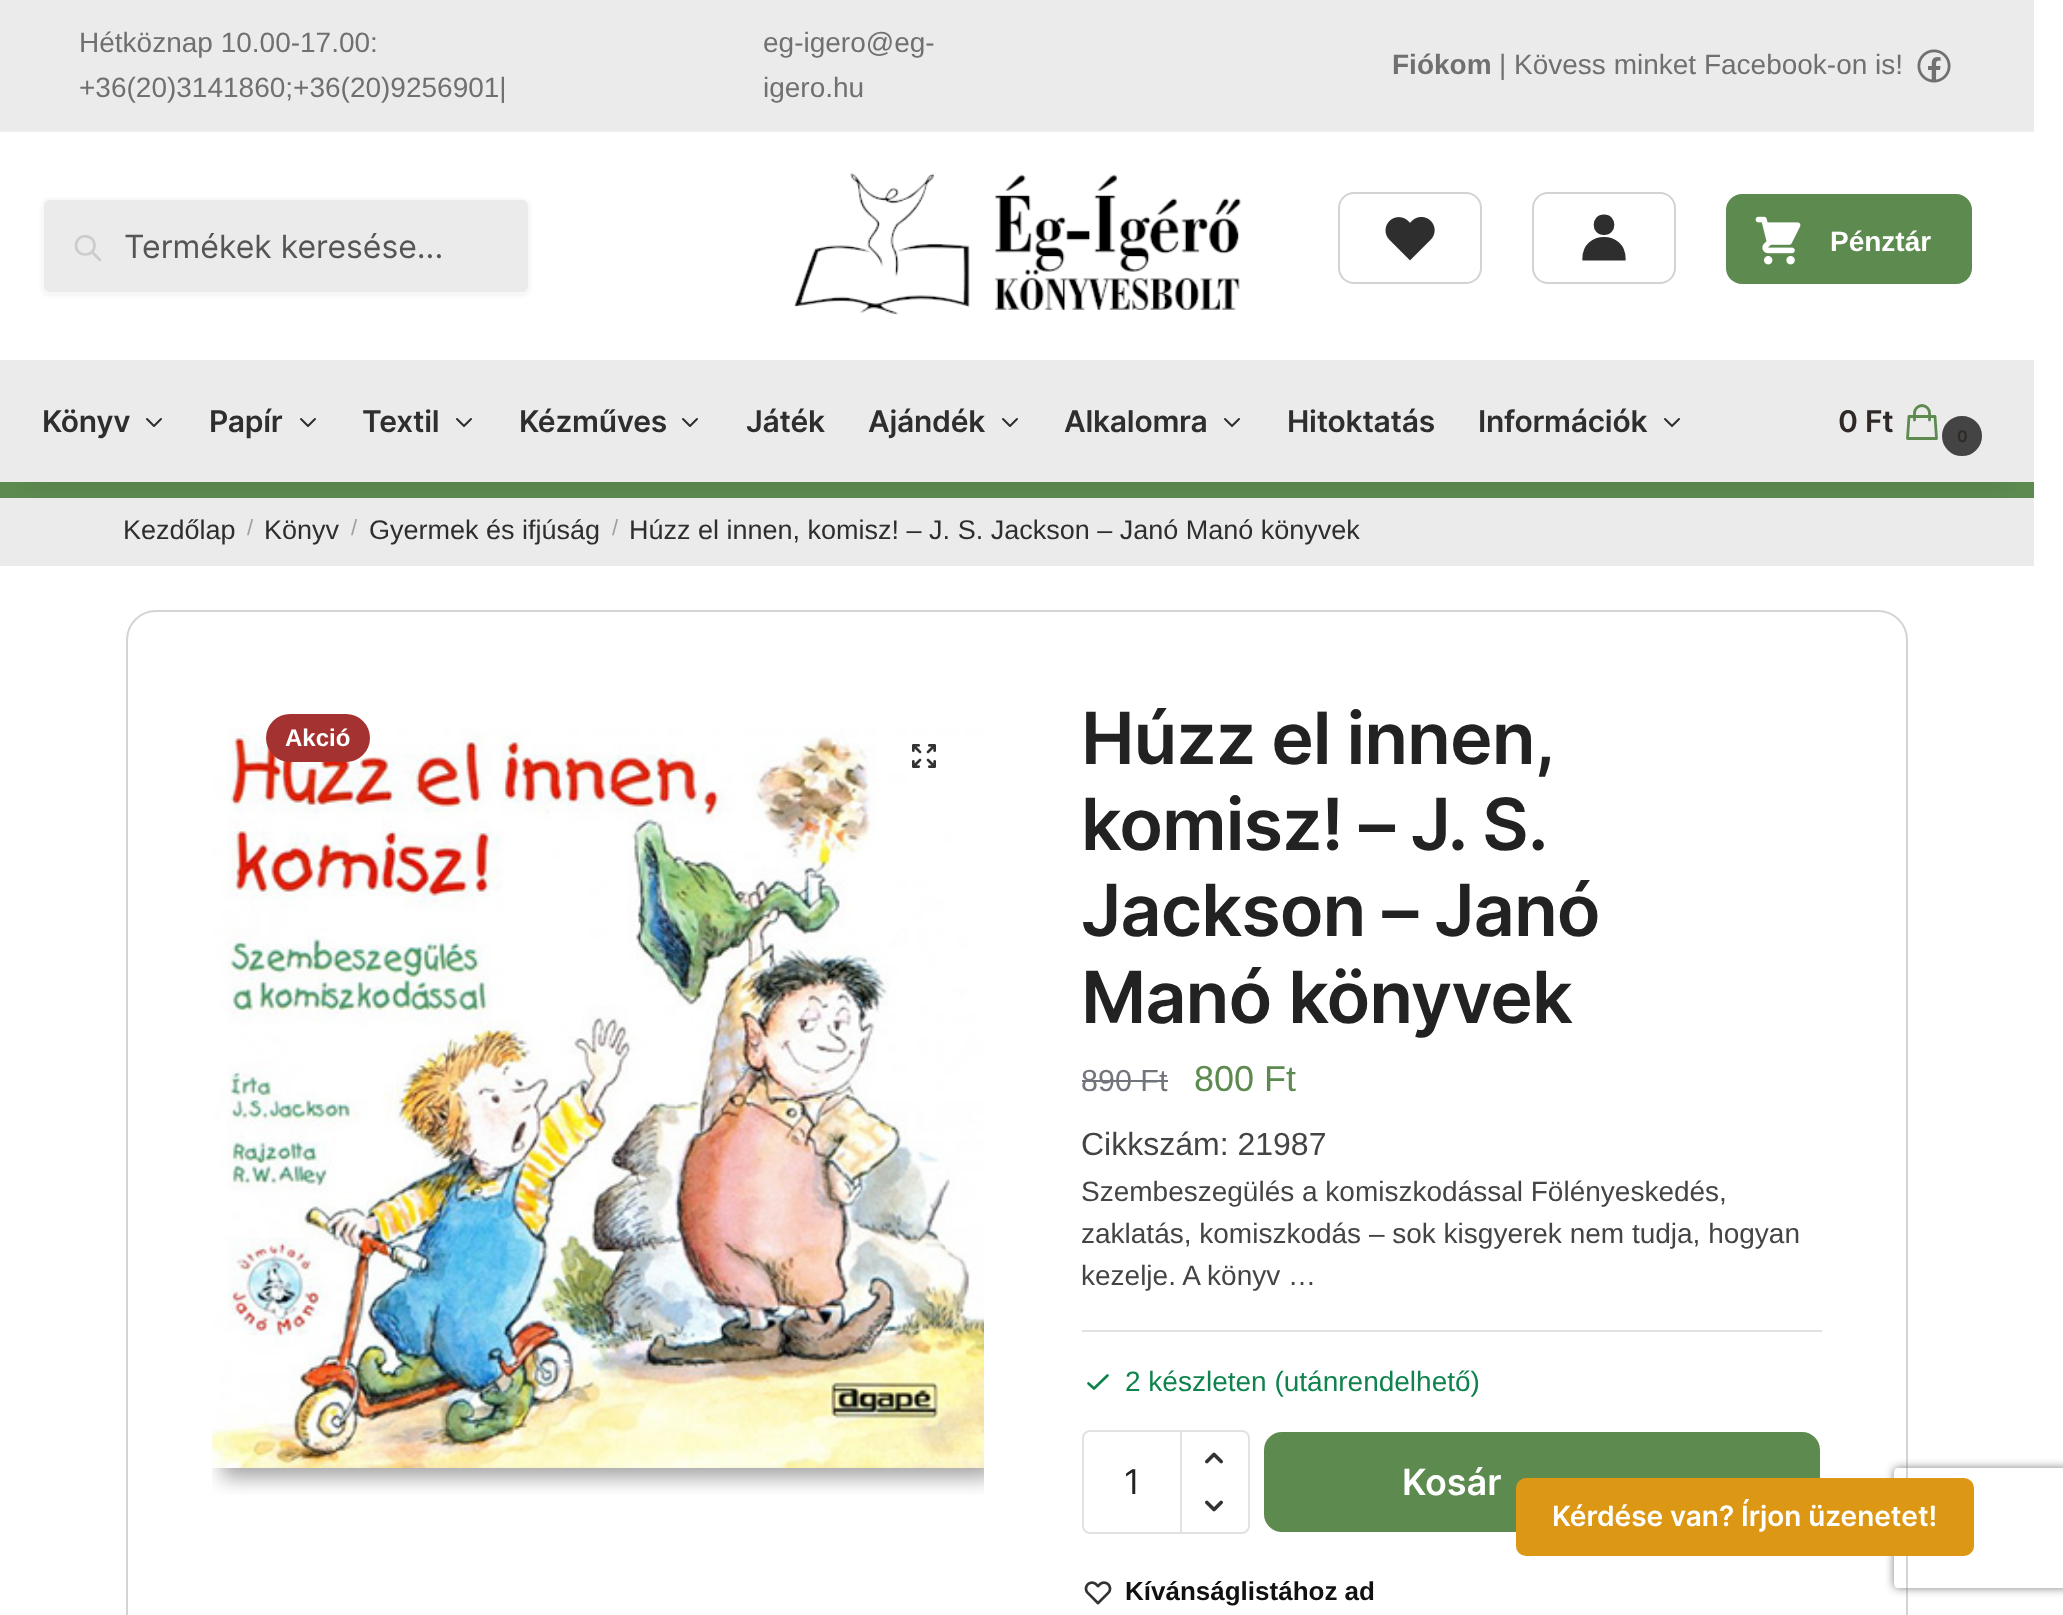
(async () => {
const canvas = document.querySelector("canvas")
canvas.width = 2063
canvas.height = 1615
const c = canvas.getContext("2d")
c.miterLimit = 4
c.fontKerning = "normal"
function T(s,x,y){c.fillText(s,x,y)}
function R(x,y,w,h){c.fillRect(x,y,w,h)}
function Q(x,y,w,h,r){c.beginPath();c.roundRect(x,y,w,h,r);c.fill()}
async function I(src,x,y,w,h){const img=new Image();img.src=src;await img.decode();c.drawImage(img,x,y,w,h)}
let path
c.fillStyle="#fff"
R(0,0,2063,1615)
c.fillStyle="#ebebeb"
R(0,0,2034,130)
c.fillStyle="#eee"
R(0,130,2034,2)
c.font="28px Liberation Sans"
c.fillStyle="#707070"
T("Hétköznap 10.00-17.00:",79,52)
T("+36(20)3141860;+36(20)9256901|",79,97)
T("eg-igero@eg-",763,52)
T("igero.hu",763,97)
c.font="bold 28px Liberation Sans"
T("Fiókom",1392,74)
c.font="28px Liberation Sans"
T("| Kövess minket Facebook-on is!",1499,74)
await I("1.png",1917,49,34,34)
c.fillStyle="#0000000d"
c.filter="blur(2px)"
c.beginPath()
c.roundRect(42,200,488,96,8)
c.fill()
c.filter="none"
c.fillStyle="#ebebeb"
c.beginPath()
c.roundRect(43,199,486,94,7)
c.fill()
c.strokeStyle="#f8f8f8"
c.lineWidth=2
c.stroke()
path = new Path2D("M100 260l-8-8m2.5-6.5c0 12-18.5 12-18.5 0c0-12.5 18.5-12.5 18.5 0z")
c.strokeStyle="#ccc"
c.lineWidth=2.7
c.lineCap="round"
c.lineJoin="round"
c.stroke(path)
c.font="32px Inter"
c.fillStyle="#555"
T("Termékek keresése...",124,258)
await I("2.png",794,173,447,142)
c.beginPath()
c.roundRect(1339,193,142,90,15)
c.strokeStyle="#d3d3d3"
c.lineWidth=2
c.lineJoin="miter"
c.stroke()
await I("3.png",1385,217,50,44)
c.beginPath()
c.roundRect(1533,193,142,90,15)
c.stroke()
c.fillStyle="#2e2e2e"
path = new Path2D("M1604 233c11 0 11-17 0-17c-11 0-11 17 0 17zm-20 25c0-25 40-25 40 0z")
c.fill(path,"evenodd")
path = new Path2D("M1604 233c11 0 11-16.5 0-16.5c-11 0-11 16.5 0 16.5zm-19.5 25.5c0-26 39-26 39 0z")
c.strokeStyle="#2e2e2e"
c.lineWidth=4.2
c.lineCap="butt"
c.stroke(path)
c.fillStyle="#5d8a4f"
Q(1726,194,246,90,16)
await I("4.png",1755,216,46,49)
c.font="bold 28px Liberation Sans"
c.fillStyle="#fff"
T("Pénztár",1830,251)
c.fillStyle="#5d8a4f"
R(0,482,2034,16)
c.fillStyle="#ebebeb"
R(0,498,2034,68)
c.fillStyle="#0000001a"
c.filter="blur(10px)"
c.beginPath()
c.rect(30,420,1974,62)
c.fill()
c.filter="none"
c.fillStyle="#ebebeb"
R(0,360,2034,122)
c.letterSpacing="-0.25px"
c.font="600 30px Inter"
c.fillStyle="#2e2e2e"
T("Könyv",42,432)
path = new Path2D("M161 419l-7 7l-7-7")
c.lineWidth=2
c.lineCap="round"
c.lineJoin="round"
c.stroke(path)
T("Papír",209,432)
path = new Path2D("M315 419l-7 7l-7-7")
c.stroke(path)
T("Textil",362,432)
path = new Path2D("M471 419l-7 7l-7-7")
c.stroke(path)
T("Kézműves",519,432)
path = new Path2D("M697 419l-7 7l-7-7")
c.stroke(path)
T("Játék",746,432)
T("Ajándék",868,432)
path = new Path2D("M1017 419l-7 7l-7-7")
c.stroke(path)
T("Alkalomra",1064,432)
path = new Path2D("M1239 419l-7 7l-7-7")
c.stroke(path)
T("Hitoktatás",1287,432)
T("Információk",1478,432)
path = new Path2D("M1679 419l-7 7l-7-7")
c.stroke(path)
c.fillStyle="#2e2926"
T("0 Ft",1838,432)
path = new Path2D("M1929.5 420v-7c0-4-3.5-7.5-7.5-7.5c-4 0-7.5 3.5-7.5 7.5v7m-5.5-3.5h26l1.5 22h-29z")
c.strokeStyle="#5d8a4f"
c.lineWidth=2.8
c.stroke(path)
c.fillStyle="#444"
c.beginPath()
c.arc(1962,436,19,0,7)
c.fill()
c.strokeStyle="#444"
c.lineWidth=2
c.stroke()
c.font="600 16px Inter"
c.fillStyle="#2e2926"
T("0",1957,442)
c.letterSpacing="0px"
c.font="27px Liberation Sans"
c.fillStyle="#2e2e2e"
T("Kezdőlap",123,539)
c.font="22px Liberation Sans"
c.fillStyle="#9f9f9f"
T("/",247,535)
c.font="27px Liberation Sans"
c.fillStyle="#2e2e2e"
T("Könyv",264,539)
c.font="22px Liberation Sans"
c.fillStyle="#9f9f9f"
T("/",351,535)
c.font="27px Liberation Sans"
c.fillStyle="#2e2e2e"
T("Gyermek és ifjúság",369,539)
c.font="22px Liberation Sans"
c.fillStyle="#9f9f9f"
T("/",612,535)
c.font="27px Liberation Sans"
c.fillStyle="#2e2e2e"
T("Húzz el innen, komisz! – J. S. Jackson – Janó Manó könyvek",629,539)
c.beginPath()
c.roundRect(127,611,1780,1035,29)
c.strokeStyle="#d4d4d4"
c.lineJoin="miter"
c.stroke()
c.save()
c.beginPath()
c.rect(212,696,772,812)
c.clip()
c.beginPath()
c.rect(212,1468,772,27)
c.clip()
c.fillStyle="#4b4b4b80"
c.filter="blur(10px)"
c.beginPath()
c.rect(222,706,772,772)
c.fill()
c.filter="none"
c.restore()
await I("5.png",212,727,772,741)
c.fillStyle="#a43231"
Q(266,714,104,48,24)
c.font="bold 24px Liberation Sans"
c.fillStyle="#fff"
T("Akció",285,746)
await I("6.png",912,744,24,24)
c.letterSpacing="-1px"
c.wordSpacing="-1px"
c.font="600 72px Inter"
c.fillStyle="#222"
T("Húzz el innen,",1081,764)
c.wordSpacing="-0.5px"
T("komisz! – J. S.",1081,850)
c.wordSpacing="0px"
T("Jackson – Janó",1081,936)
T("Manó könyvek",1081,1023)
c.letterSpacing="0px"
c.font="30.5px Liberation Sans"
c.fillStyle="#72767c"
T("890 Ft",1081,1091)
R(1082,1080,86,2)
c.font="36px Liberation Sans"
c.fillStyle="#5d8a4f"
T("800 Ft",1194,1091)
c.font="32px Liberation Sans"
c.fillStyle="#444"
T("Cikkszám: 21987",1081,1155)
c.font="28px Liberation Sans"
T("Szembeszegülés a komiszkodással Fölényeskedés,",1081,1201)
T("zaklatás, komiszkodás – sok kisgyerek nem tudja, hogyan",1081,1243)
T("kezelje. A könyv …",1081,1285)
c.fillStyle="#e2e2e2"
R(1082,1330,740,2)
path = new Path2D("M1088.5 1383.5l5.5 5l13.5-13")
c.strokeStyle="#0f834d"
c.lineWidth=2.7
c.lineJoin="round"
c.stroke(path)
c.fillStyle="#0f834d"
T("2 készleten (utánrendelhető)",1125,1391)
c.beginPath()
c.roundRect(1083,1431,98,102,[7,0,0,7])
c.strokeStyle="#e2e2e2"
c.lineWidth=2
c.lineJoin="miter"
c.stroke()
c.font="34px Inter"
c.fillStyle="#222"
T("1",1124,1494)
c.fillStyle="#fff"
c.beginPath()
c.roundRect(1181,1431,68,102,[0,7,7,0])
c.fill()
c.stroke()
await I("7.png",1205,1452,18,12)
await I("8.png",1205,1500,18,12)
c.fillStyle="#5d8a4f"
c.beginPath()
c.roundRect(1263,1431,558,102,19)
c.fill()
c.strokeStyle="#fff"
c.stroke()
c.font="600 36px Inter"
c.fillStyle="#fff"
T("Kosár",1402,1495)
await I("9.png",1084,1581,28,24)
c.font="bold 26px Liberation Sans"
c.fillStyle="#111"
T("Kívánságlistához ad",1125,1600)
c.save()
path = new Path2D("M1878 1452h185v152h-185zm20 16h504c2 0 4 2 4 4v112c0 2-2 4-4 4h-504c-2 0-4-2-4-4v-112c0-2 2-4 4-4z")
c.clip(path,"evenodd")
c.fillStyle="#808080"
c.filter="blur(5px)"
c.beginPath()
c.roundRect(1894,1468,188,120,4)
c.fill()
c.filter="none"
c.restore()
c.fillStyle="#dc9814"
Q(1516,1478,458,78,10)
c.font="600 28px Inter"
c.fillStyle="#fff"
T("Kérdése van? Írjon üzenetet!",1552,1526)
})()
